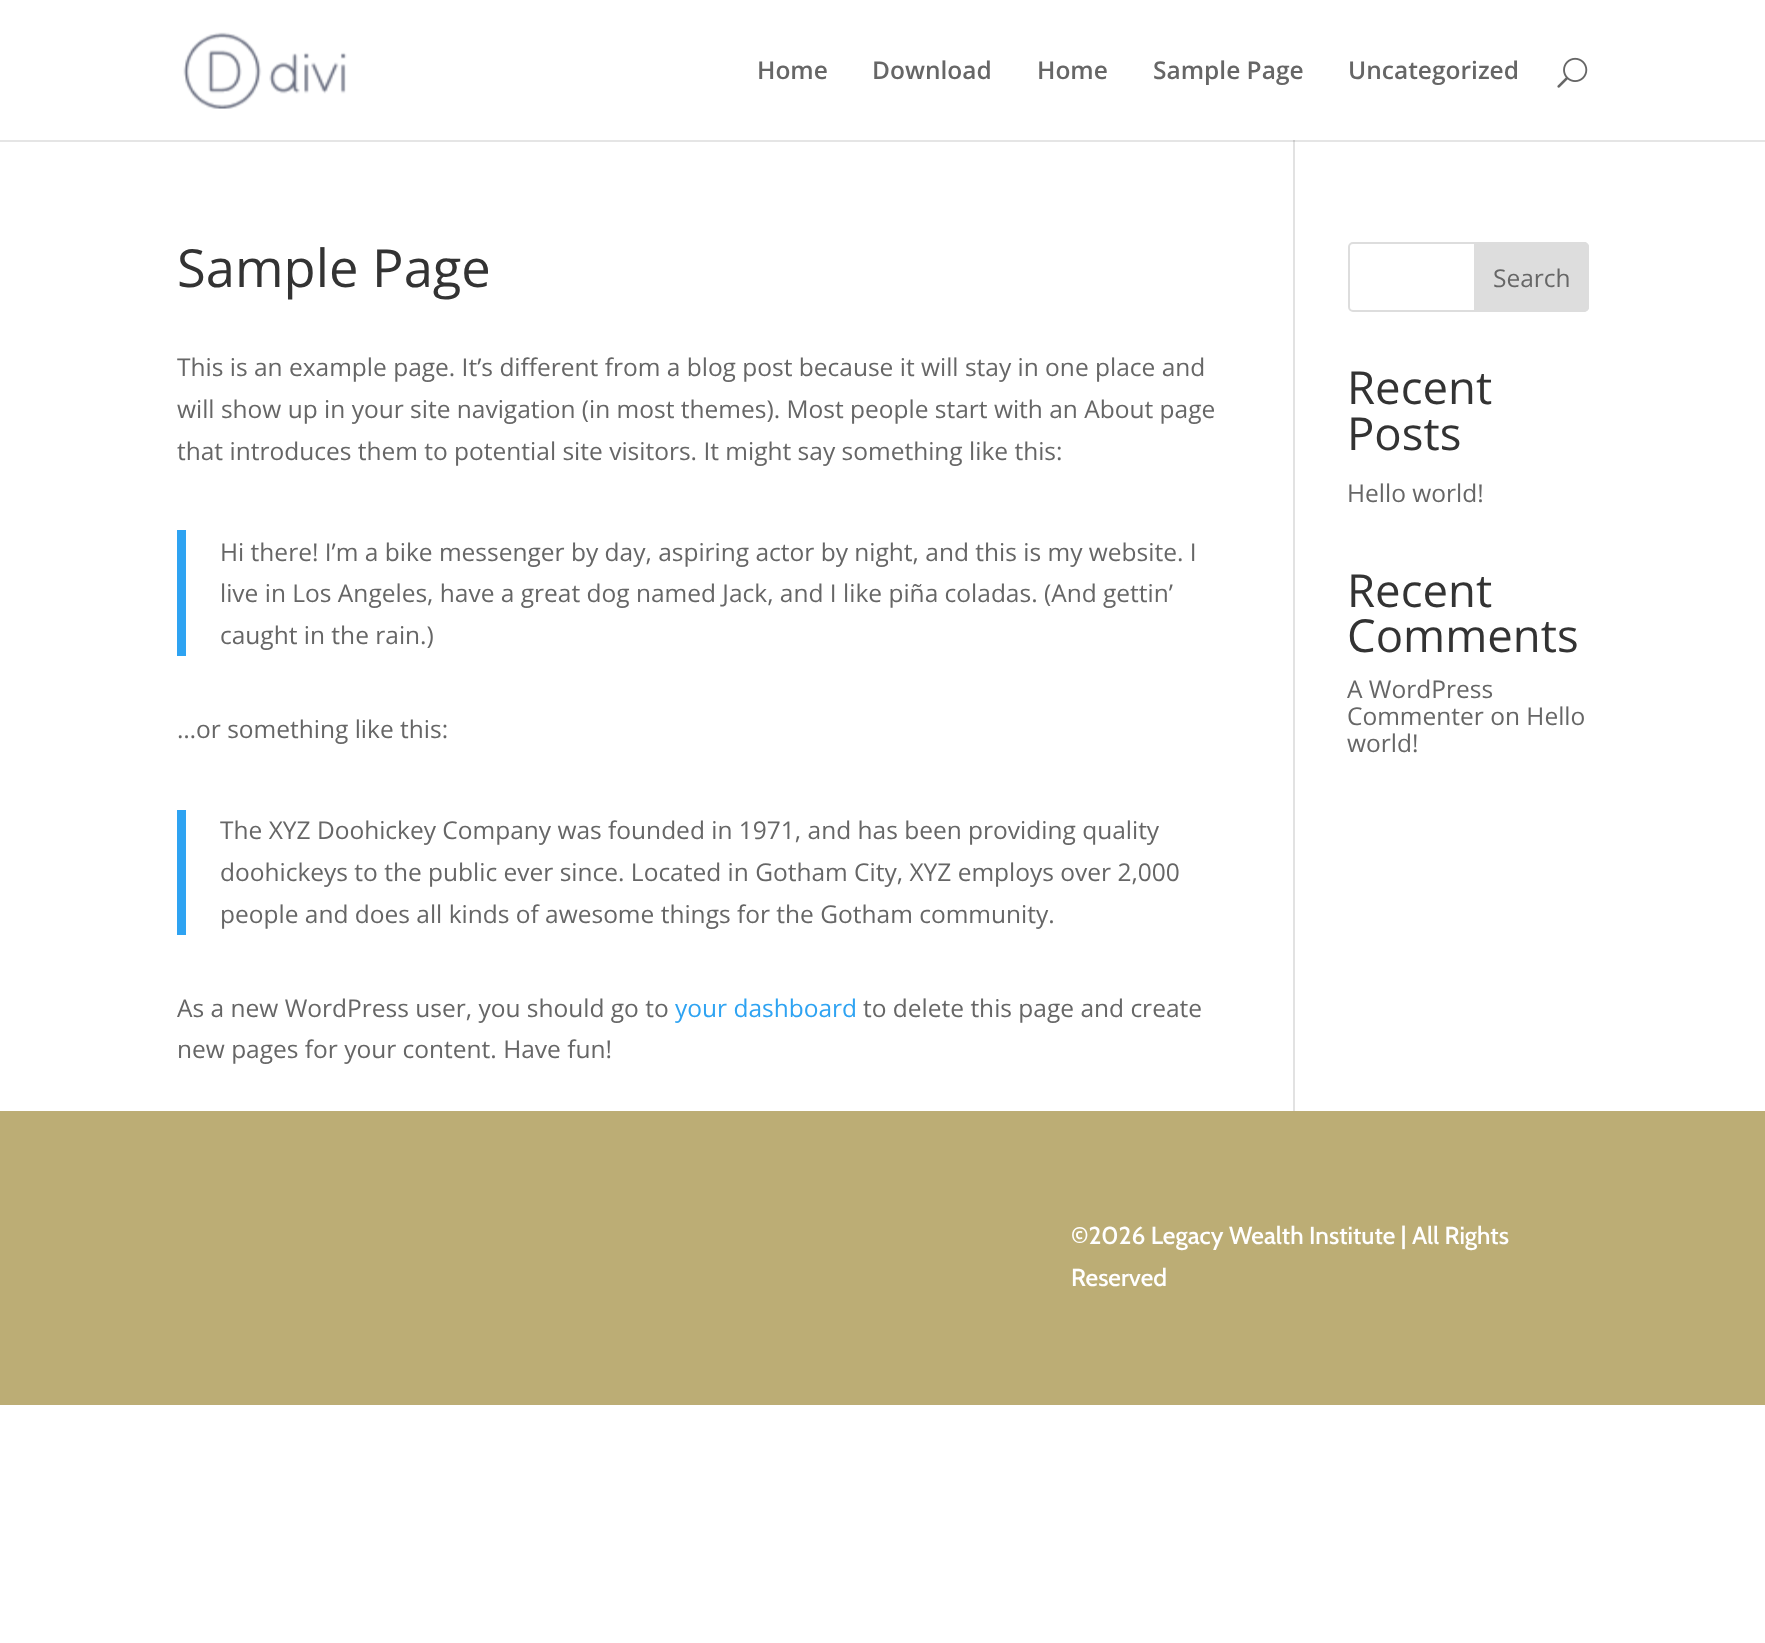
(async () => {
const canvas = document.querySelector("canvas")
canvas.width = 1765
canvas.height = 1643
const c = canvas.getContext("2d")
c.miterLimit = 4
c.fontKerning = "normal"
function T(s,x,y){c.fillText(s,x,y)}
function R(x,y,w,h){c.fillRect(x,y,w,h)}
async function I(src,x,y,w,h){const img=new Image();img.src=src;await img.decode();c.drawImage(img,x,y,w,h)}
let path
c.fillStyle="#fff"
R(0,0,1765,1643)
c.fillStyle="#e2e2e2"
R(1293,140,2,971)
c.fillStyle="#0000001a"
path = new Path2D("M0 140v2h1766v-140v138z")
c.fill(path)
await I("1.png",183,32,164,77)
c.font="600 24.5px Open Sans"
c.fillStyle="#666"
T("Home",757,79)
T("Download",872,79)
T("Home",1037,79)
T("Sample Page",1153,79)
T("Uncategorized",1348,79)
await I("2.png",1557,57,31,31)
c.font="52.5px Open Sans"
c.fillStyle="#333"
T("Sample Page",177,287)
c.font="24.5px Open Sans"
c.fillStyle="#666"
T("This is an example page. It’s different from a blog post because it will stay in one place and",177,376)
T("will show up in your site navigation (in most themes). Most people start with an About page",177,418)
T("that introduces them to potential site visitors. It might say something like this:",177,460)
c.fillStyle="#2ea3f2"
R(177,530,9,126)
c.fillStyle="#666"
T("Hi there! I’m a bike messenger by day, aspiring actor by night, and this is my website. I",220,561)
T("live in Los Angeles, have a great dog named Jack, and I like piña coladas. (And gettin’",220,602)
T("caught in the rain.)",220,644)
T("…or something like this:",177,738)
c.fillStyle="#2ea3f2"
R(177,810,9,125)
c.fillStyle="#666"
T("The XYZ Doohickey Company was founded in 1971, and has been providing quality",220,839)
T("doohickeys to the public ever since. Located in Gotham City, XYZ employs over 2,000",220,881)
T("people and does all kinds of awesome things for the Gotham community.",220,923)
T("As a new WordPress user, you should go to",177,1017)
c.fillStyle="#2ea3f2"
T("your dashboard",675,1017)
c.fillStyle="#666"
T("to delete this page and create",863,1017)
T("new pages for your content. Have fun!",177,1058)
c.beginPath()
c.roundRect(1349,243,239,68,4)
c.strokeStyle="#ddd"
c.lineWidth=2
c.stroke()
c.fillStyle="#ddd"
c.beginPath()
c.roundRect(1475,243,113,68,[0,4,4,0])
c.fill()
c.stroke()
c.fillStyle="#666"
T("Search",1493,287)
c.font="45.5px Open Sans"
c.fillStyle="#333"
T("Recent",1347,404)
T("Posts",1347,450)
c.font="24.5px Open Sans"
c.fillStyle="#666"
T("Hello world!",1347,502)
c.font="45.5px Open Sans"
c.fillStyle="#333"
T("Recent",1347,607)
T("Comments",1347,652)
c.font="24.5px Open Sans"
c.fillStyle="#666"
T("A WordPress",1347,698)
T("Commenter on Hello",1347,725)
T("world!",1347,752)
c.fillStyle="#bcad75"
R(0,1111,1765,294)
c.font="500 24.5px Cabin"
c.fillStyle="#fff"
T("©2026 Legacy Wealth Institute | All Rights",1071,1244)
T("Reserved",1071,1286)
})()
